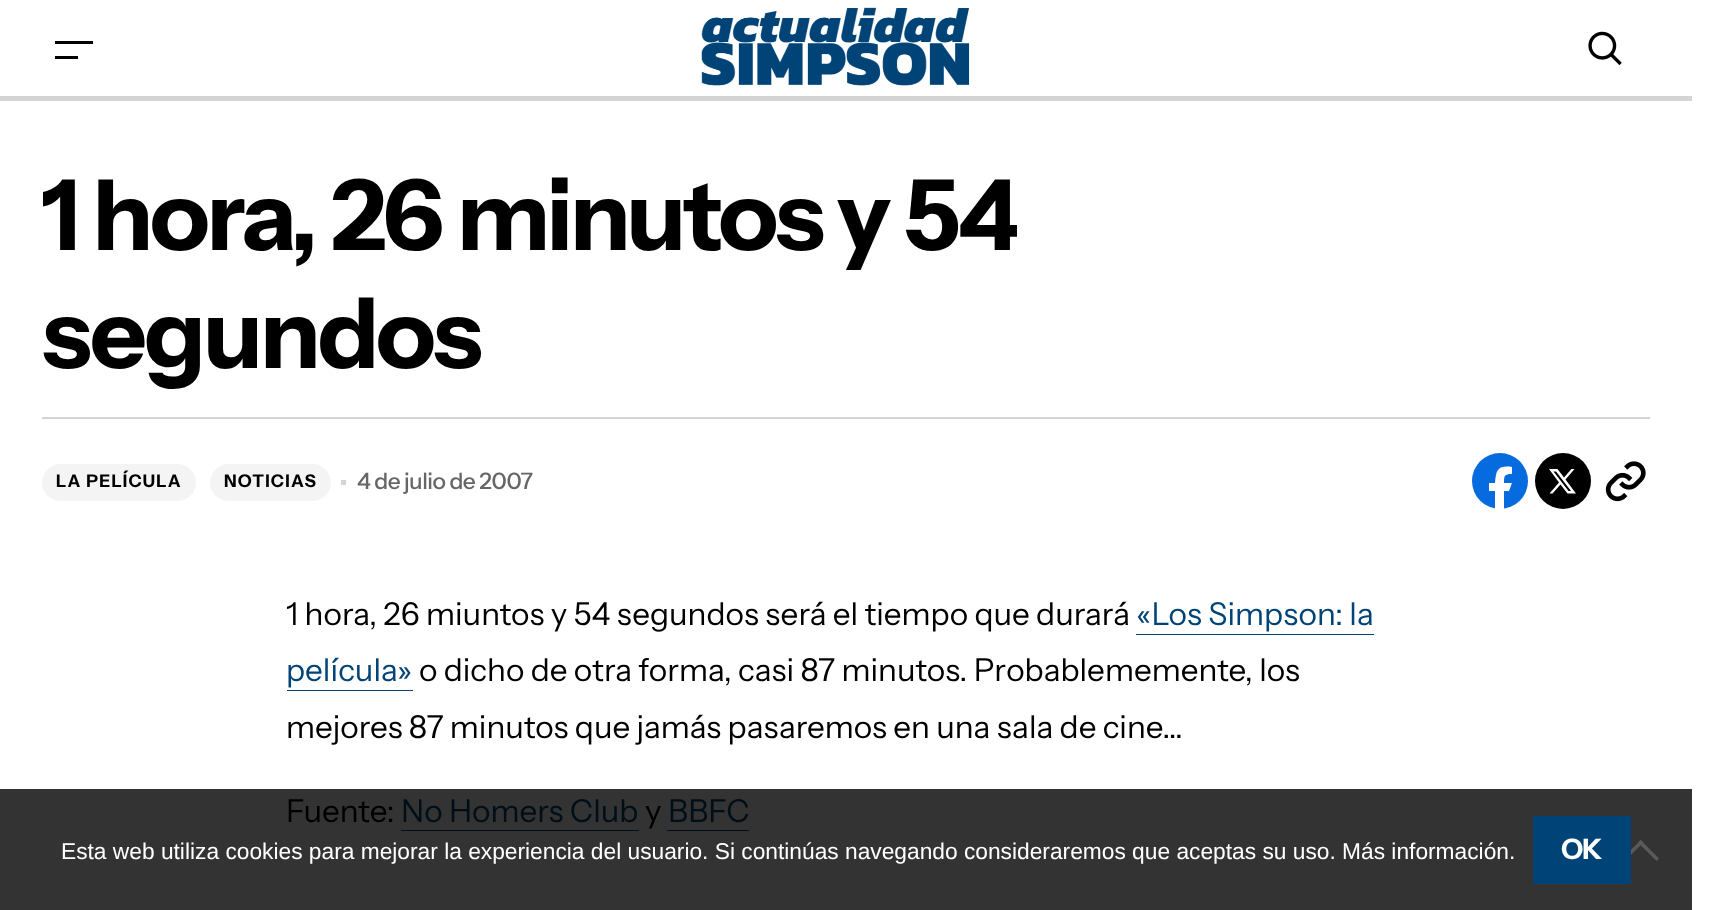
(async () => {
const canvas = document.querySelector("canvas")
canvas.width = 1717
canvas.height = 910
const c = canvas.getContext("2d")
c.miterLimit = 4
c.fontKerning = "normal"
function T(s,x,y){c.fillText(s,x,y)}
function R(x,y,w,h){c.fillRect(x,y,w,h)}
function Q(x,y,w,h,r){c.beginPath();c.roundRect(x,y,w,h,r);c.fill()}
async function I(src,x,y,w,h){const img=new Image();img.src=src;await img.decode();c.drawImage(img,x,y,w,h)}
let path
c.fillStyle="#fff"
R(0,0,1717,910)
c.fillStyle="#333"
R(0,789,1692,121)
c.fillStyle="#000"
R(55,41,38,3)
R(55,56,23,3)
await I("1.png",701,7,269,79)
await I("2.png",1588,31,34,35)
c.fillStyle="#d4d4d4"
R(0,96,1692,5)
c.letterSpacing="-2.9px"
c.font="bold 98px Instrument Sans"
c.fillStyle="#000"
T("1 hora, 26 minutos y 54",42,250)
T("segundos",42,368)
c.fillStyle="#d4d4d4"
R(42,417,1608,2)
c.fillStyle="#f4f4f4"
Q(42,464,154,37,18.5)
c.letterSpacing="1.25px"
c.font="bold 17.5px Instrument Sans"
c.fillStyle="#000"
T("LA PELÍCULA",56,487)
c.fillStyle="#f4f4f4"
Q(210,464,121,37,18.5)
c.fillStyle="#000"
T("NOTICIAS",224,487)
c.fillStyle="#d4d4d4"
R(341,480,5,5)
c.letterSpacing="-0.5px"
c.font="500 22.75px Instrument Sans"
c.fillStyle="#666"
T("4 de julio de 2007",357,489)
c.fillStyle="#066bde"
c.beginPath()
c.arc(1500,481,28,0,7)
c.fill()
c.fillStyle="#fff"
path = new Path2D("M1504 491h5l3-8h-8c0-7 0-9 8-9v-7c-15-2-16 4-17 16h-6v8h6v18c3 0 6 0 9 0z")
c.fill(path)
c.fillStyle="#000"
c.beginPath()
c.arc(1563,481,28,0,7)
c.fill()
c.fillStyle="#fff"
path = new Path2D("M1557.5 469h-8.5l10 13.5l-9.5 11h3l8-9l7 9h8.5l-10.5-14l9-10.5h-3l-7.5 8.5zm11 22l-15-19.5h2.5l15 19.5z")
c.fill(path)
await I("3.png",1605,461,41,41)
c.letterSpacing="0px"
c.font="31.5px Instrument Sans"
c.fillStyle="#000"
T("1 hora, 26 miuntos y 54 segundos será el tiempo que durará",286,625)
c.fillStyle="#047"
T("«Los Simpson: la",1136,625)
R(1136,634,238,1)
T("película»",286,681)
R(287,690,126,1)
c.fillStyle="#000"
T("o dicho de otra forma, casi 87 minutos. Probablememente, los",419,681)
T("mejores 87 minutos que jamás pasaremos en una sala de cine…",286,738)
T("Fuente:",286,822)
c.fillStyle="#000e18"
T("No Homers Club",401,822)
R(401,830,238,1)
c.fillStyle="#000"
T("y",645,822)
c.fillStyle="#000e18"
T("BBFC",668,822)
R(667,830,82,1)
c.font="22.75px Liberation Sans"
c.fillStyle="#fff"
T("Esta web utiliza cookies para mejorar la experiencia del usuario. Si continúas navegando consideraremos que aceptas su uso. Más información.",61,859)
c.fillStyle="#047"
R(1533,816,98,68)
c.letterSpacing="-1px"
c.font="bold 28px Instrument Sans"
c.fillStyle="#fff"
T("OK",1561,859)
c.save()
c.beginPath()
c.rect(1631,831,35,35)
c.clip()
c.fillStyle="#5a5a5a"
path = new Path2D("M1641 840l2.5 2.5l-19 18.5l-2.5-2.5z")
c.fill(path)
c.restore()
c.fillStyle="#5a5a5a"
path = new Path2D("M1638 842.5l2.5-2.5l18.5 18.5l-2.5 2.5z")
c.fill(path)
})()
